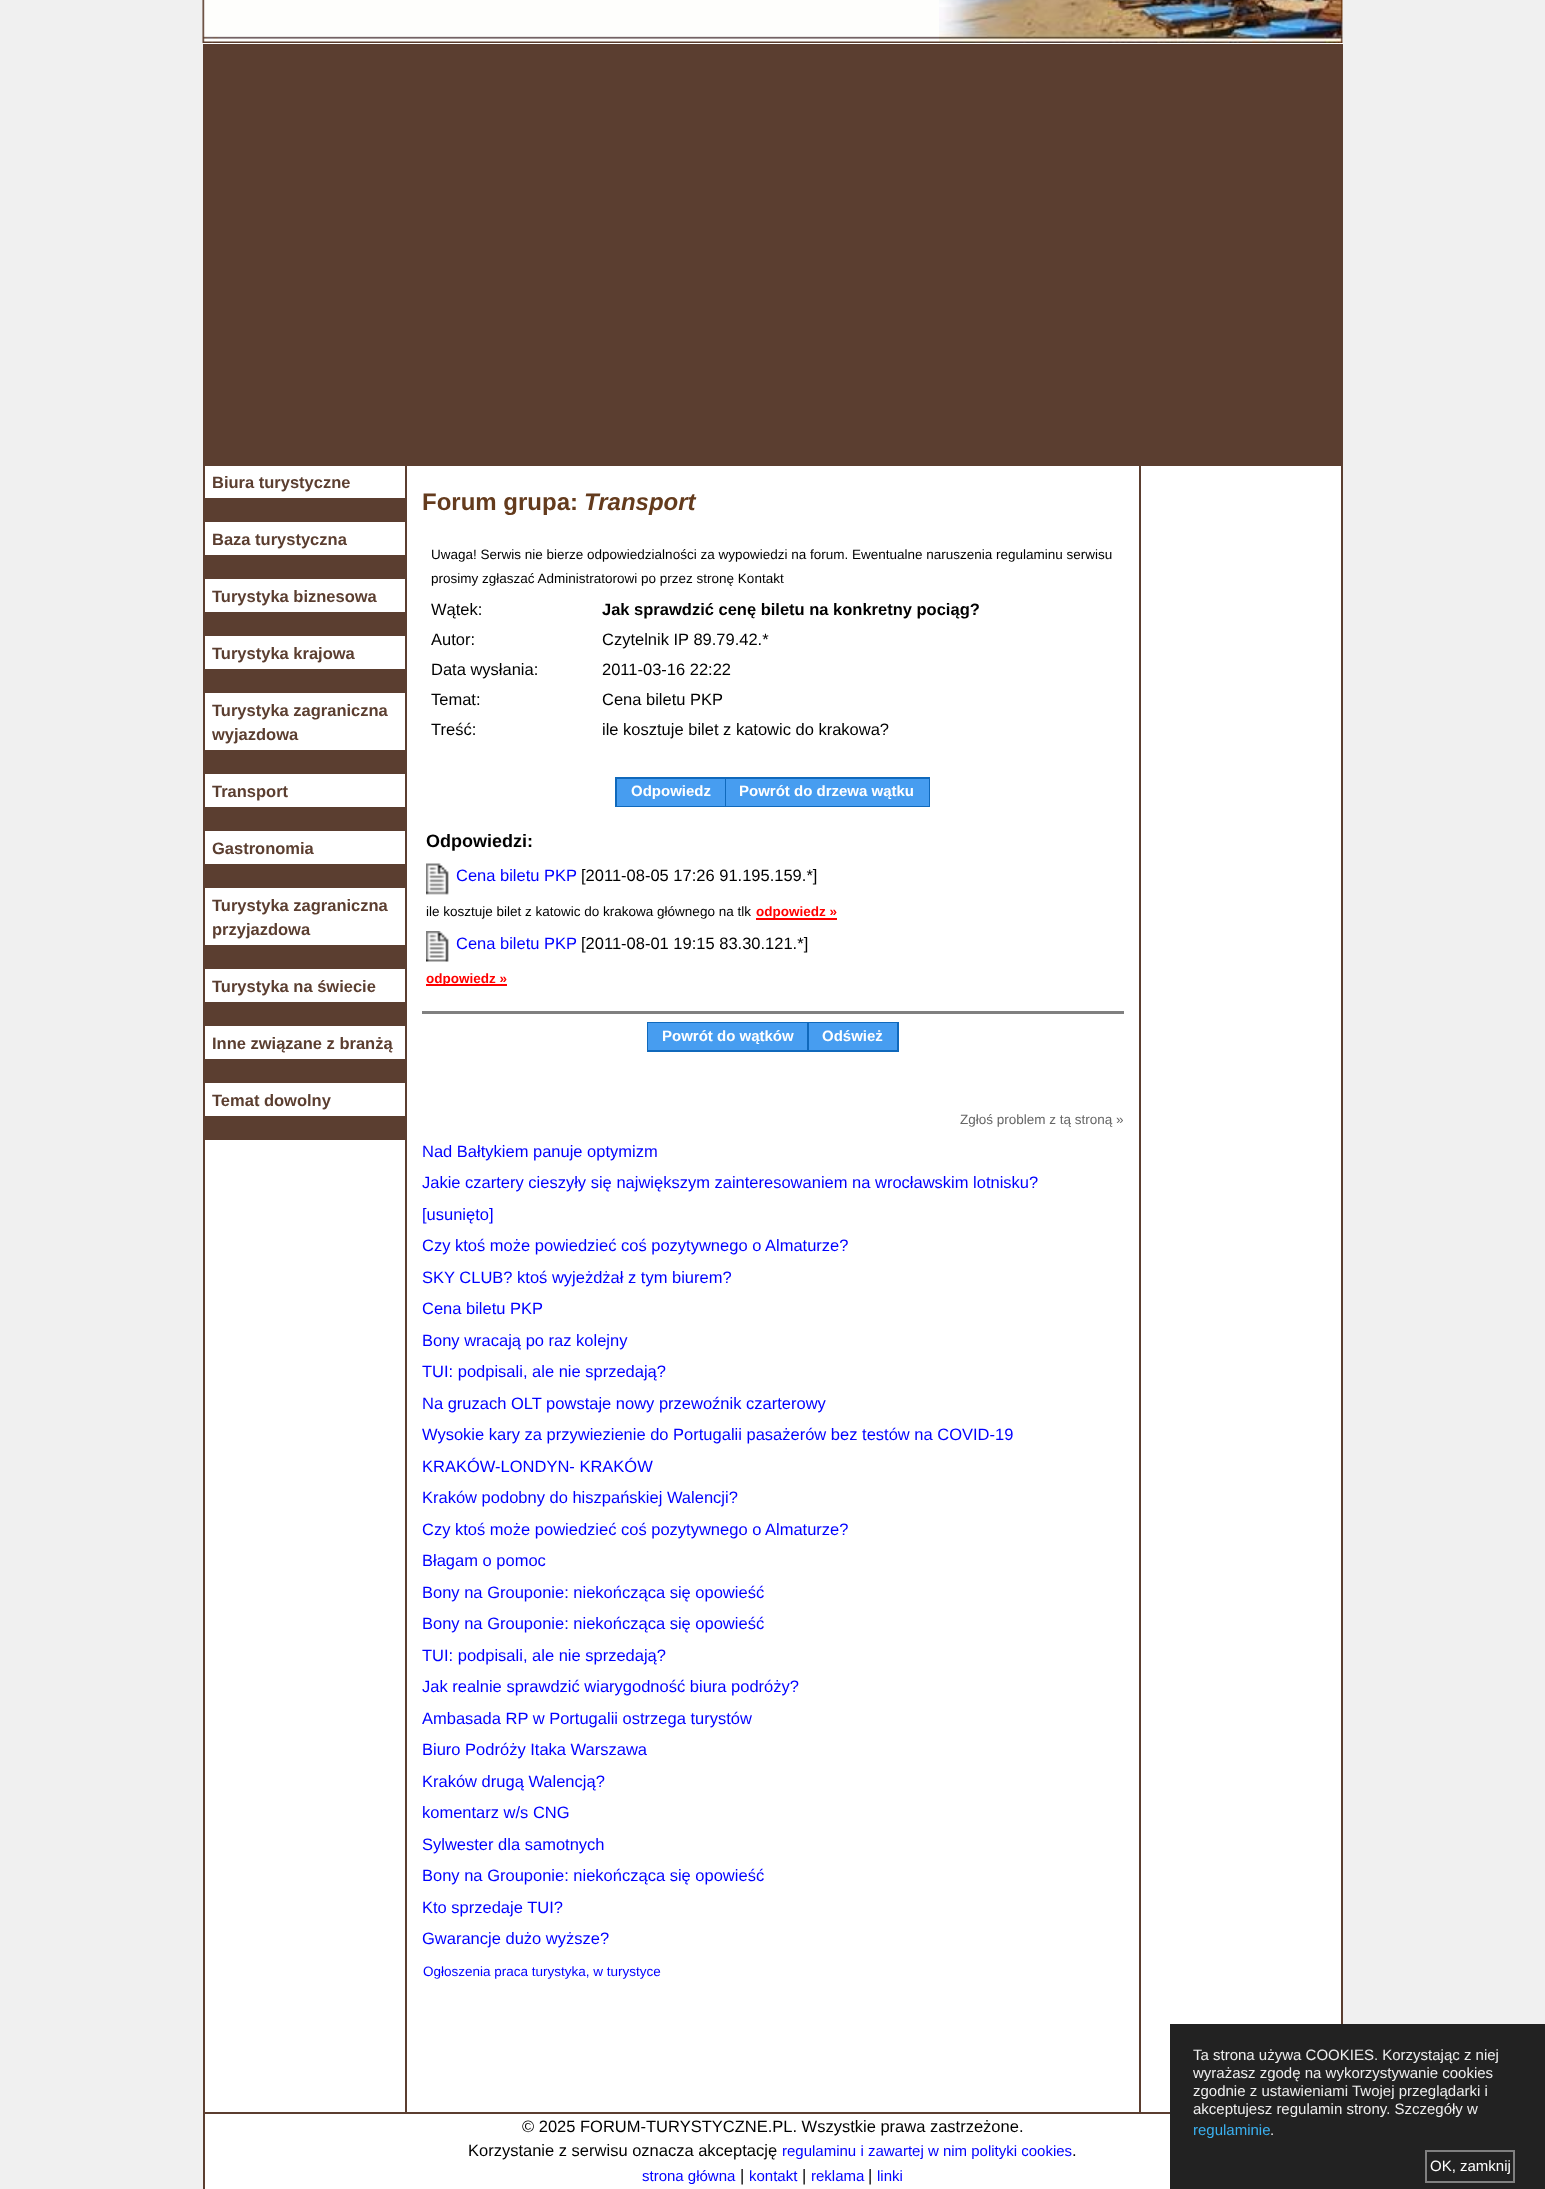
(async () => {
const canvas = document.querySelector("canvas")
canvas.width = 1545
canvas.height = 2189
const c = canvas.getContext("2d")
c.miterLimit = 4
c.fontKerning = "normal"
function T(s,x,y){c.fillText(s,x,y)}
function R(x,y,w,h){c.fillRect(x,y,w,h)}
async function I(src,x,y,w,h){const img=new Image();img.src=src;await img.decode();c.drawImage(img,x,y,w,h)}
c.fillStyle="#f0f0f0"
R(0,0,1545,2189)
c.fillStyle="#fff"
R(203,0,1140,2189)
await I("1.png",202,0,737,43)
await I("2.png",939,0,404,43)
c.fillStyle="#5b3e30"
R(203,44,1140,422)
R(203,465,2,1647)
c.font="bold 16.5px Liberation Sans"
T("Biura turystyczne",212,488)
R(205,498,200,24)
T("Baza turystyczna",212,545)
R(205,555,200,24)
T("Turystyka biznesowa",212,602)
R(205,612,200,24)
T("Turystyka krajowa",212,659)
R(205,669,200,24)
T("Turystyka zagraniczna",212,716)
T("wyjazdowa",212,740)
R(205,750,200,24)
T("Transport",212,797)
R(205,807,200,24)
T("Gastronomia",212,854)
R(205,864,200,24)
T("Turystyka zagraniczna",212,911)
T("przyjazdowa",212,935)
R(205,945,200,24)
T("Turystyka na świecie",212,992)
R(205,1002,200,24)
T("Inne związane z branżą",212,1049)
R(205,1059,200,24)
T("Temat dowolny",212,1106)
R(205,1116,200,24)
R(405,465,2,1647)
c.font="bold 24px Liberation Sans"
c.fillStyle="#643b1d"
T("Forum grupa:",422,510)
c.font="italic bold 24px Liberation Sans"
T("Transport",584,510)
c.font="13.5px Liberation Sans"
c.fillStyle="#000"
T("Uwaga! Serwis nie bierze odpowiedzialności za wypowiedzi na forum. Ewentualne naruszenia regulaminu serwisu",431,559)
T("prosimy zgłaszać Administratorowi po przez stronę Kontakt",431,583)
c.font="16.5px Liberation Sans"
T("Wątek:",431,615)
c.font="bold 16.5px Liberation Sans"
T("Jak sprawdzić cenę biletu na konkretny pociąg?",602,615)
c.font="16.5px Liberation Sans"
T("Autor:",431,645)
T("Czytelnik IP 89.79.42.*",602,645)
T("Data wysłania:",431,675)
T("2011-03-16 22:22",602,675)
T("Temat:",431,705)
T("Cena biletu PKP",602,705)
T("Treść:",431,735)
T("ile kosztuje bilet z katowic do krakowa?",602,735)
c.fillStyle="#1069bc"
R(615,777,315,30)
c.fillStyle="#479df0"
R(617,779,108,27)
c.font="bold 15px Liberation Sans"
c.fillStyle="#fff"
T("Odpowiedz",631,796)
c.fillStyle="#479df0"
R(726,779,203,27)
c.fillStyle="#fff"
T("Powrót do drzewa wątku",739,796)
c.font="bold 18px Liberation Sans"
c.fillStyle="#000"
T("Odpowiedzi:",426,847)
await I("3.png",426,863,23,32)
c.font="16.5px Liberation Sans"
c.fillStyle="#00f"
T("Cena biletu PKP",456,881)
c.fillStyle="#000"
T("[2011-08-05 17:26 91.195.159.*]",581,881)
c.font="13.5px Liberation Sans"
T("ile kosztuje bilet z katowic do krakowa głównego na tlk",426,916)
c.fillStyle="#f00"
R(756,918,81,2)
c.font="bold 13.5px Liberation Sans"
T("odpowiedz »",756,916)
await I("4.png",426,931,23,31)
c.font="16.5px Liberation Sans"
c.fillStyle="#00f"
T("Cena biletu PKP",456,949)
c.fillStyle="#000"
T("[2011-08-01 19:15 83.30.121.*]",581,949)
c.fillStyle="#f00"
R(426,984,81,2)
c.font="bold 13.5px Liberation Sans"
T("odpowiedz »",426,983)
c.fillStyle="#808080"
R(422,1011,702,3)
c.fillStyle="#1069bc"
R(647,1022,252,30)
c.fillStyle="#479df0"
R(648,1023,159,27)
c.font="bold 15px Liberation Sans"
c.fillStyle="#fff"
T("Powrót do wątków",662,1041)
c.fillStyle="#479df0"
R(809,1023,88,27)
c.fillStyle="#fff"
T("Odśwież",822,1041)
c.font="13.5px Liberation Sans"
c.fillStyle="#666"
T("Zgłoś problem z tą stroną »",960,1124)
c.font="16.5px Liberation Sans"
c.fillStyle="#00f"
T("Nad Bałtykiem panuje optymizm",422,1157)
T("Jakie czartery cieszyły się największym zainteresowaniem na wrocławskim lotnisku?",422,1188)
T("[usunięto]",422,1220)
T("Czy ktoś może powiedzieć coś pozytywnego o Almaturze?",422,1251)
T("SKY CLUB? ktoś wyjeżdżał z tym biurem?",422,1283)
T("Cena biletu PKP",422,1314)
T("Bony wracają po raz kolejny",422,1346)
T("TUI: podpisali, ale nie sprzedają?",422,1377)
T("Na gruzach OLT powstaje nowy przewoźnik czarterowy",422,1409)
T("Wysokie kary za przywiezienie do Portugalii pasażerów bez testów na COVID-19",422,1440)
T("KRAKÓW-LONDYN- KRAKÓW",422,1472)
T("Kraków podobny do hiszpańskiej Walencji?",422,1503)
T("Czy ktoś może powiedzieć coś pozytywnego o Almaturze?",422,1535)
T("Błagam o pomoc",422,1566)
T("Bony na Grouponie: niekończąca się opowieść",422,1598)
T("Bony na Grouponie: niekończąca się opowieść",422,1629)
T("TUI: podpisali, ale nie sprzedają?",422,1661)
T("Jak realnie sprawdzić wiarygodność biura podróży?",422,1692)
T("Ambasada RP w Portugalii ostrzega turystów",422,1724)
T("Biuro Podróży Itaka Warszawa",422,1755)
T("Kraków drugą Walencją?",422,1787)
T("komentarz w/s CNG",422,1818)
T("Sylwester dla samotnych",422,1850)
T("Bony na Grouponie: niekończąca się opowieść",422,1881)
T("Kto sprzedaje TUI?",422,1913)
T("Gwarancje dużo wyższe?",422,1944)
c.font="13.5px Liberation Sans"
T("Ogłoszenia praca turystyka, w turystyce",423,1976)
c.fillStyle="#5b3e30"
R(1139,465,2,1647)
R(1341,465,2,1559)
R(203,2112,967,2)
R(203,2114,2,75)
c.font="16.5px Liberation Sans"
c.fillStyle="#000"
T("© 2025 FORUM-TURYSTYCZNE.PL. Wszystkie prawa zastrzeżone.",522,2132)
T("Korzystanie z serwisu oznacza akceptację",468,2156)
c.font="15px Liberation Sans"
c.fillStyle="#00f"
T("regulaminu i zawartej w nim polityki cookies",782,2156)
c.font="16.5px Liberation Sans"
c.fillStyle="#000"
T(".",1072,2156)
c.font="15px Liberation Sans"
c.fillStyle="#00f"
T("strona główna",642,2181)
c.font="16.5px Liberation Sans"
c.fillStyle="#000"
T("|",740,2181)
c.font="15px Liberation Sans"
c.fillStyle="#00f"
T("kontakt",749,2181)
c.font="16.5px Liberation Sans"
c.fillStyle="#000"
T("|",802,2181)
c.font="15px Liberation Sans"
c.fillStyle="#00f"
T("reklama",811,2181)
c.font="16.5px Liberation Sans"
c.fillStyle="#000"
T("|",868,2181)
c.font="15px Liberation Sans"
c.fillStyle="#00f"
T("linki",877,2181)
c.fillStyle="#222"
R(1170,2024,375,165)
c.fillStyle="#eee"
T("Ta strona używa COOKIES. Korzystając z niej",1193,2060)
T("wyrażasz zgodę na wykorzystywanie cookies",1193,2078)
T("zgodnie z ustawieniami Twojej przeglądarki i",1193,2096)
T("akceptujesz regulamin strony. Szczegóły w",1193,2114)
c.fillStyle="#3ab0ef"
T("regulaminie",1193,2135)
c.fillStyle="#eee"
T(".",1270,2135)
c.strokeStyle="#808080"
c.lineWidth=2
c.strokeRect(1426,2151,88,31)
c.fillStyle="#fff"
T("OK, zamknij",1430,2171)
})()
